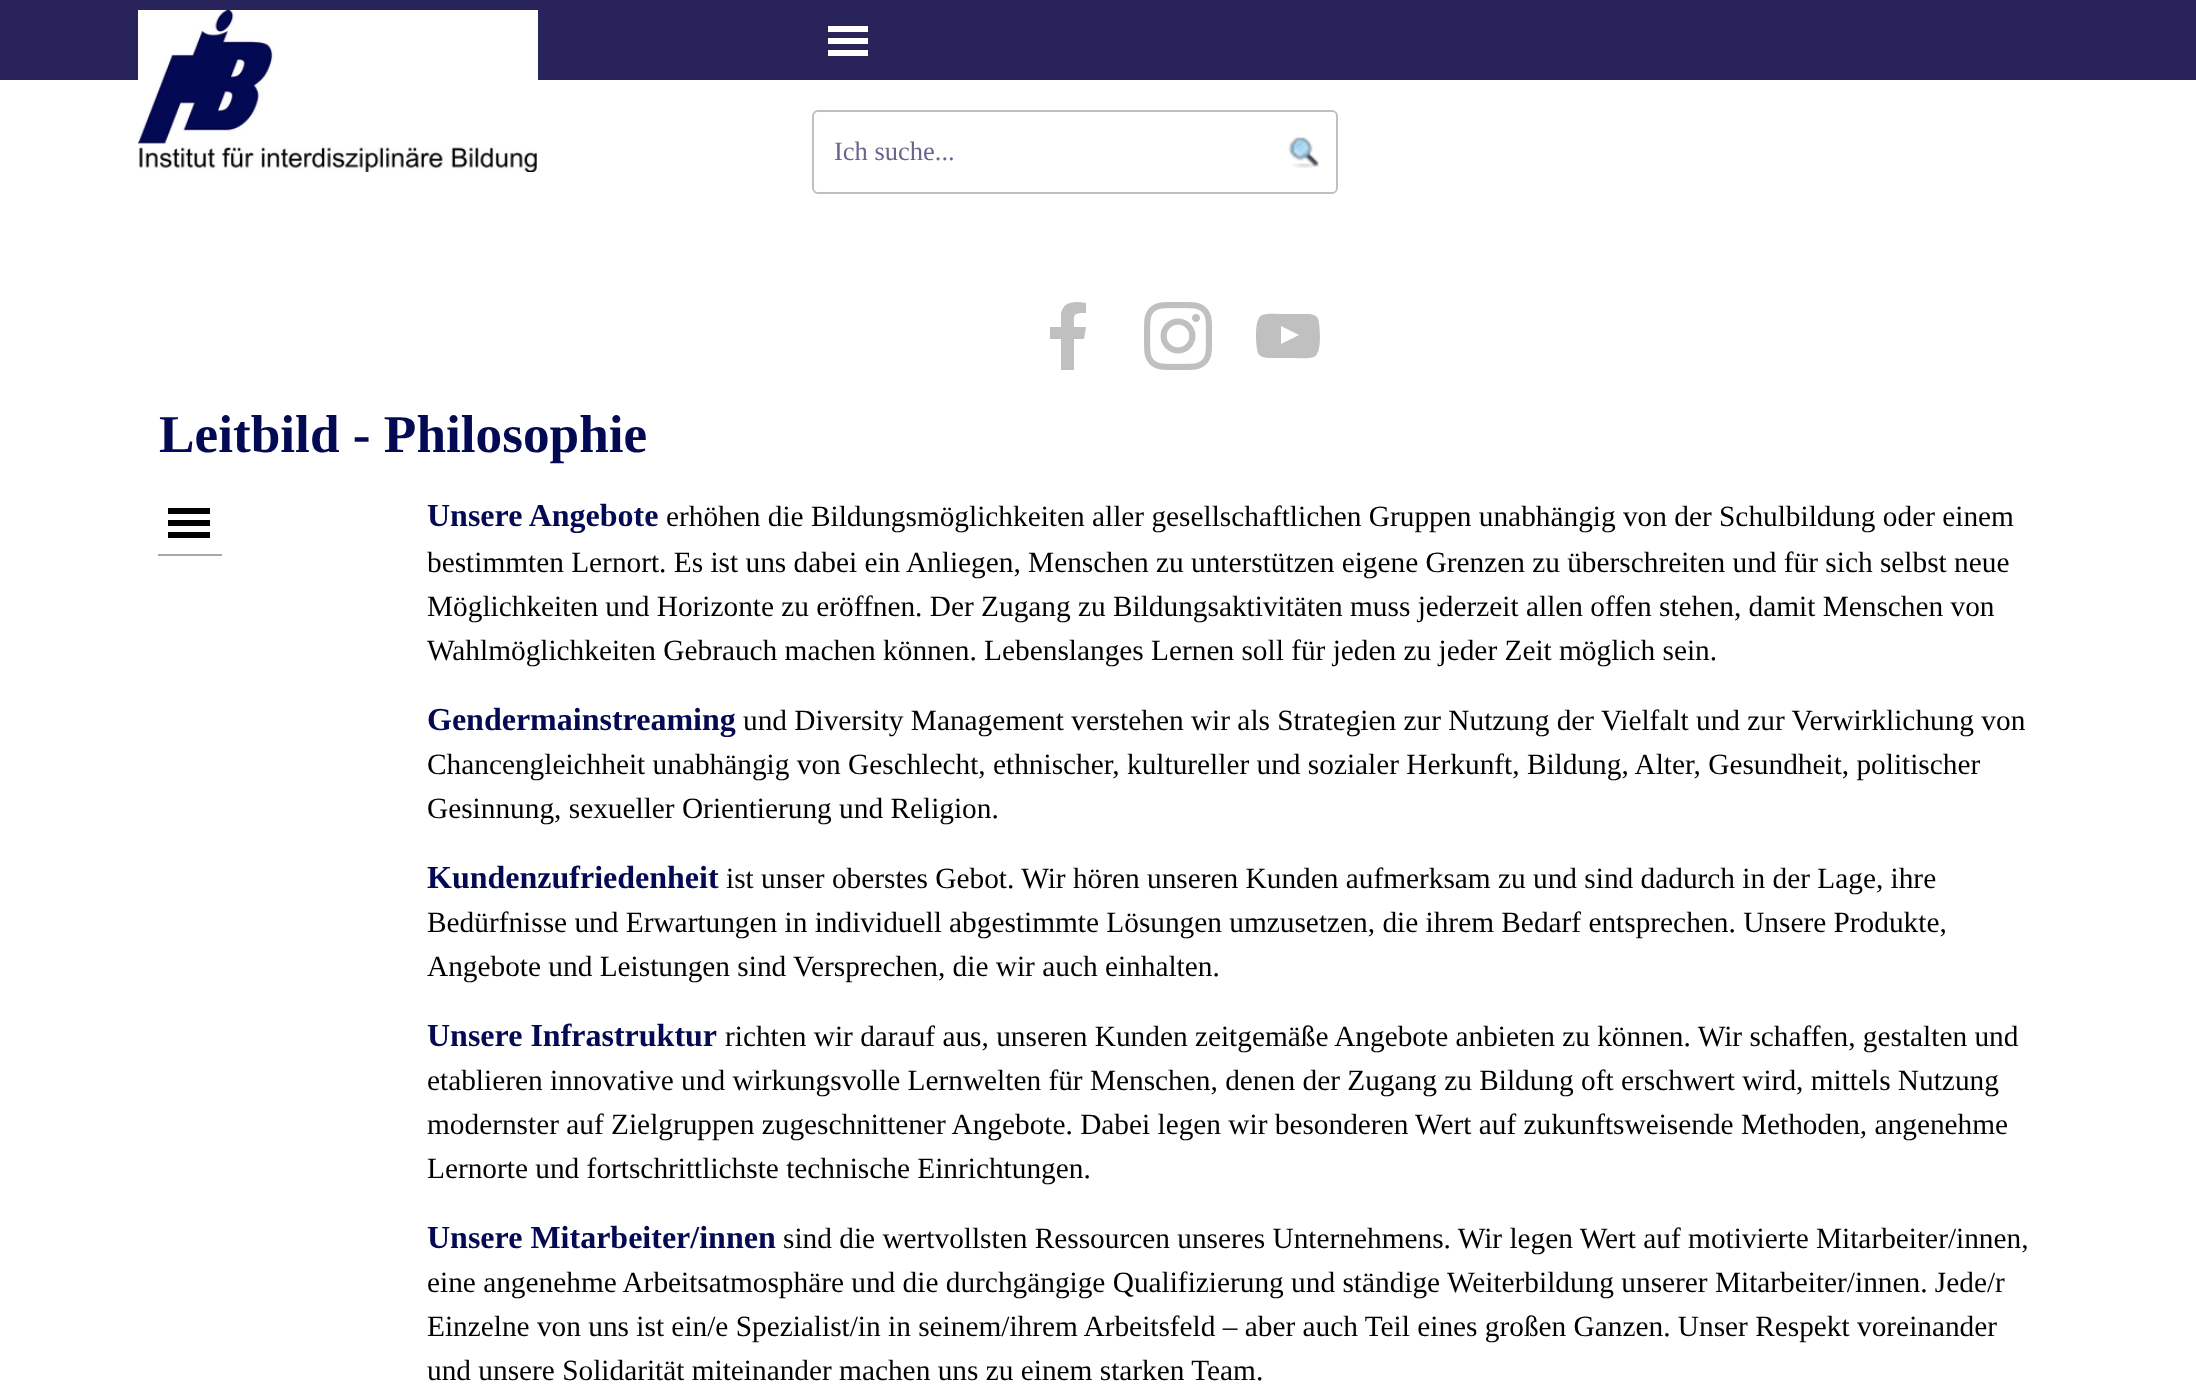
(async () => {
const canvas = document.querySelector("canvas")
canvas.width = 2196
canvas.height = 1392
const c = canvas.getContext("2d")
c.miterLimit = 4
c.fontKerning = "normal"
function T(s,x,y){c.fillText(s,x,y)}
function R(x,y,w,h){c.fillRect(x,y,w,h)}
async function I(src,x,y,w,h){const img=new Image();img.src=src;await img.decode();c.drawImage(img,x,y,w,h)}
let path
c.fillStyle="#fff"
R(0,0,2196,1392)
c.fillStyle="#29235c"
R(0,0,2196,80)
await I("1.png",138,10,400,162)
c.fillStyle="#fff"
R(828,26,40,6)
R(828,38,40,6)
R(828,50,40,6)
await I("2.png",1288,137,31,31)
c.beginPath()
c.roundRect(813,111,524,82,5)
c.strokeStyle="#c0c0c0"
c.lineWidth=2
c.stroke()
c.font="26.5px Liberation Serif"
c.fillStyle="#69658d"
T("Ich suche...",834,160)
c.fillStyle="#c0c0c0"
path = new Path2D("M1074 370v-31h10l2-12h-12c0-12-2-14 12-14v-10c-11-2-23-2-25 11v13h-11v12h11v31z")
c.fill(path)
await I("3.png",1144,302,68,68)
path = new Path2D("M1319 323c-1-10-8-9-16-9h-20c-5 0-16-1-21 1c-8 4-6 26-5 34c1 10 10 9 18 9h18c5 0 16 1 21-1c8-4 6-26 5-34zm-38 21v-18l18 9z")
c.fill(path)
c.font="bold 53.25px Liberation Serif"
c.fillStyle="#040953"
T("Leitbild - Philosophie",159,452)
c.fillStyle="#a9a9a9"
R(158,554,64,2)
c.fillStyle="#000"
R(168,508,42,6)
R(168,520,42,6)
R(168,532,42,6)
c.font="bold 32px Liberation Serif"
c.fillStyle="#040953"
T("Unsere Angebote",427,526)
c.font="29.33px Liberation Serif"
c.fillStyle="#000"
T("erhöhen die Bildungsmöglichkeiten aller gesellschaftlichen Gruppen unabhängig von der Schulbildung oder einem",666,526)
T("bestimmten Lernort. Es ist uns dabei ein Anliegen, Menschen zu unterstützen eigene Grenzen zu überschreiten und für sich selbst neue",427,572)
T("Möglichkeiten und Horizonte zu eröffnen. Der Zugang zu Bildungsaktivitäten muss jederzeit allen offen stehen, damit Menschen von",427,616)
T("Wahlmöglichkeiten Gebrauch machen können. Lebenslanges Lernen soll für jeden zu jeder Zeit möglich sein.",427,660)
c.font="bold 32px Liberation Serif"
c.fillStyle="#040953"
T("Gendermainstreaming",427,730)
c.font="29.33px Liberation Serif"
c.fillStyle="#000"
T("und Diversity Management verstehen wir als Strategien zur Nutzung der Vielfalt und zur Verwirklichung von",743,730)
T("Chancengleichheit unabhängig von Geschlecht, ethnischer, kultureller und sozialer Herkunft, Bildung, Alter, Gesundheit, politischer",427,774)
T("Gesinnung, sexueller Orientierung und Religion.",427,818)
c.font="bold 32px Liberation Serif"
c.fillStyle="#040953"
T("Kundenzufriedenheit",427,888)
c.font="29.33px Liberation Serif"
c.fillStyle="#000"
T("ist unser oberstes Gebot. Wir hören unseren Kunden aufmerksam zu und sind dadurch in der Lage, ihre",726,888)
T("Bedürfnisse und Erwartungen in individuell abgestimmte Lösungen umzusetzen, die ihrem Bedarf entsprechen. Unsere Produkte,",427,932)
T("Angebote und Leistungen sind Versprechen, die wir auch einhalten.",427,976)
c.font="bold 32px Liberation Serif"
c.fillStyle="#040953"
T("Unsere Infrastruktur",427,1046)
c.font="29.33px Liberation Serif"
c.fillStyle="#000"
T("richten wir darauf aus, unseren Kunden zeitgemäße Angebote anbieten zu können. Wir schaffen, gestalten und",725,1046)
T("etablieren innovative und wirkungsvolle Lernwelten für Menschen, denen der Zugang zu Bildung oft erschwert wird, mittels Nutzung",427,1090)
T("modernster auf Zielgruppen zugeschnittener Angebote. Dabei legen wir besonderen Wert auf zukunftsweisende Methoden, angenehme",427,1134)
T("Lernorte und fortschrittlichste technische Einrichtungen.",427,1178)
c.font="bold 32px Liberation Serif"
c.fillStyle="#040953"
T("Unsere Mitarbeiter/innen",427,1248)
c.font="29.33px Liberation Serif"
c.fillStyle="#000"
T("sind die wertvollsten Ressourcen unseres Unternehmens. Wir legen Wert auf motivierte Mitarbeiter/innen,",783,1248)
T("eine angenehme Arbeitsatmosphäre und die durchgängige Qualifizierung und ständige Weiterbildung unserer Mitarbeiter/innen. Jede/r",427,1292)
T("Einzelne von uns ist ein/e Spezialist/in in seinem/ihrem Arbeitsfeld – aber auch Teil eines großen Ganzen. Unser Respekt voreinander",427,1336)
T("und unsere Solidarität miteinander machen uns zu einem starken Team.",427,1380)
})()
